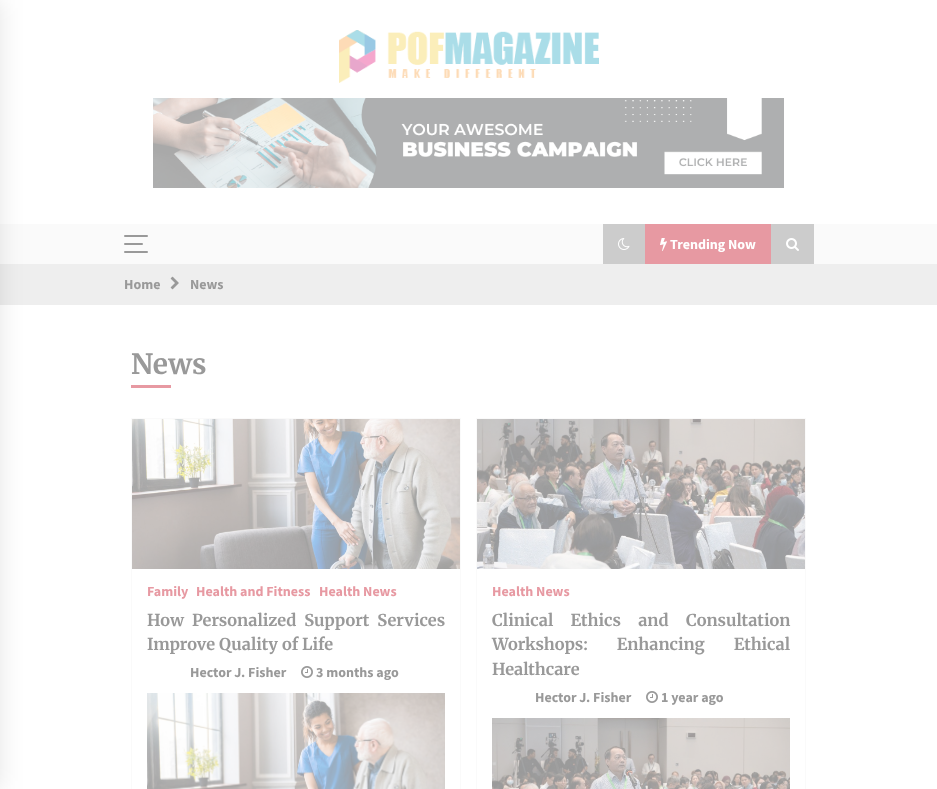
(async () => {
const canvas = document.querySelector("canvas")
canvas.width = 937
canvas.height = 789
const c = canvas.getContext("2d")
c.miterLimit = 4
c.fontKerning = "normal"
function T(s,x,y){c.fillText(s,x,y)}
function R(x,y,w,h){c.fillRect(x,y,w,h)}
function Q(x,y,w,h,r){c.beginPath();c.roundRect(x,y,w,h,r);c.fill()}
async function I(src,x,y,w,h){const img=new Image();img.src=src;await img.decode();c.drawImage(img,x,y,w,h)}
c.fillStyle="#fff"
R(0,0,937,789)
c.fillStyle="#fafafa"
R(0,224,937,40)
c.fillStyle="#eee"
R(0,264,937,41)
c.fillStyle="#0000001a"
c.filter="blur(12.5px)"
c.beginPath()
c.rect(-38,0,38,789)
c.fill()
c.filter="none"
await I("1.png",339,30,260,53)
await I("2.png",153,98,631,90)
c.fillStyle="#999"
Q(124,235,24,2,1)
Q(124,251,24,2,1)
Q(124,243,19,2,1)
c.fillStyle="#ccc"
R(603,224,42,40)
await I("3.png",618,238,12,12)
c.fillStyle="#e799a2"
R(645,224,126,40)
await I("4.png",660,238,7,13)
c.font="bold 14px Source Sans Pro"
c.fillStyle="#fff"
T("Trending Now",670,249)
c.fillStyle="#ccc"
R(771,224,43,40)
await I("5.png",786,238,13,13)
c.fillStyle="#999"
T("Home",124,289)
await I("6.png",170,276,9,14)
T("News",190,289)
c.font="bold 28px Merriweather"
T("News",131,374)
c.fillStyle="#e799a2"
R(131,385,40,3)
c.strokeStyle="#fafafa"
c.strokeRect(131.5,418.5,329,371)
await I("7.png",132,419,328,150)
c.font="bold 14px Source Sans Pro"
T("Family",147,596)
T("Health and Fitness",196,596)
T("Health News",319,596)
c.wordSpacing="4px"
c.font="bold 16.4px Merriweather"
c.fillStyle="#999"
T("How Personalized Support Services",147,626)
c.wordSpacing="0px"
T("Improve Quality of Life",147,650)
c.font="bold 14px Source Sans Pro"
T("Hector J. Fisher",190,677)
await I("8.png",301,666,12,12)
T("3 months ago",316,677)
await I("9.png",147,693,298,96)
c.strokeRect(476.5,418.5,329,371)
await I("10.png",477,419,328,150)
c.fillStyle="#e799a2"
T("Health News",492,596)
c.wordSpacing="13.5px"
c.font="bold 16.4px Merriweather"
c.fillStyle="#999"
T("Clinical Ethics and Consultation",492,626)
c.wordSpacing="25px"
T("Workshops: Enhancing Ethical",492,650)
c.wordSpacing="0px"
T("Healthcare",492,675)
c.font="bold 14px Source Sans Pro"
T("Hector J. Fisher",535,702)
await I("8.png",646,691,12,12)
T("1 year ago",661,702)
await I("11.png",492,718,298,71)
})()
